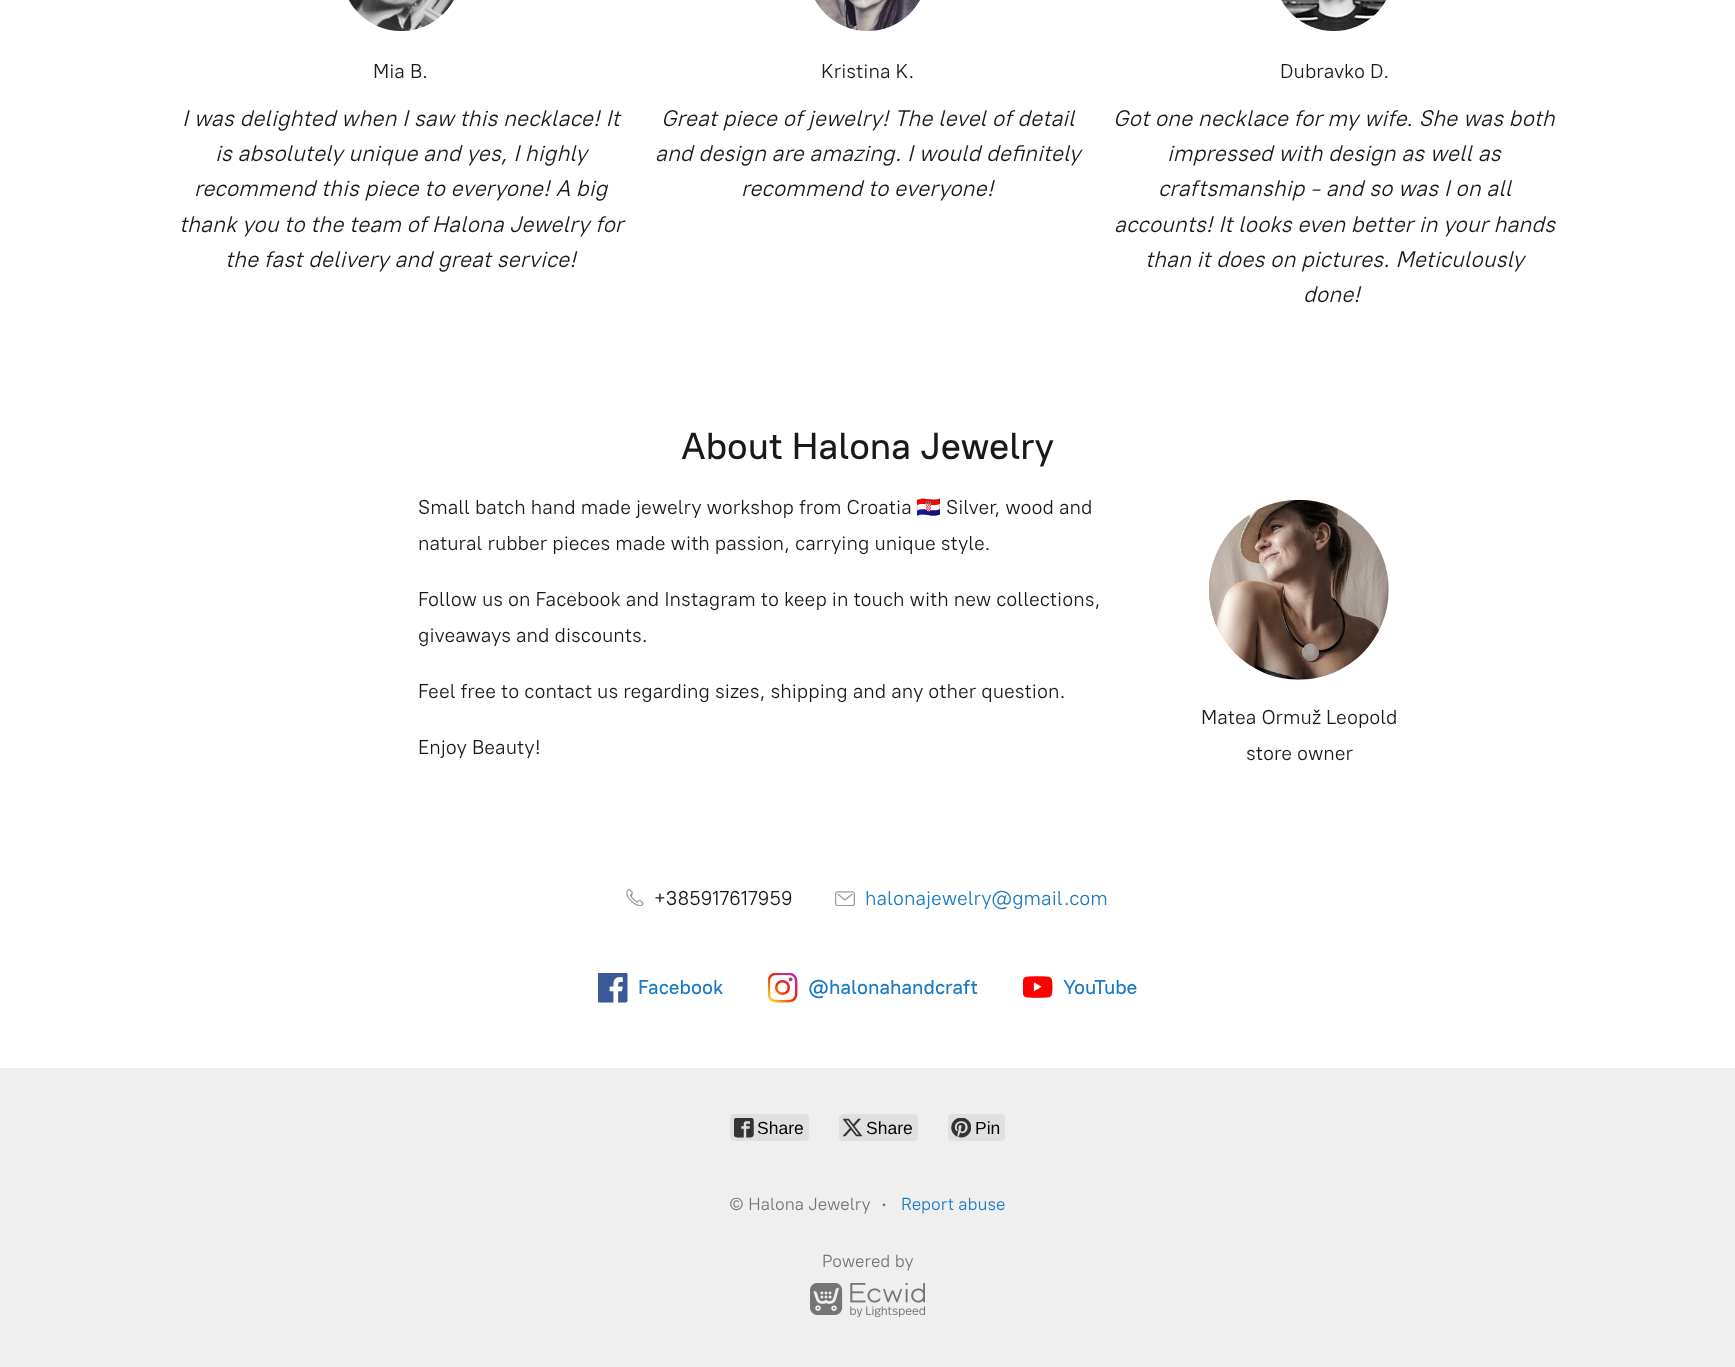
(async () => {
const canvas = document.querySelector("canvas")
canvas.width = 1735
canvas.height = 1367
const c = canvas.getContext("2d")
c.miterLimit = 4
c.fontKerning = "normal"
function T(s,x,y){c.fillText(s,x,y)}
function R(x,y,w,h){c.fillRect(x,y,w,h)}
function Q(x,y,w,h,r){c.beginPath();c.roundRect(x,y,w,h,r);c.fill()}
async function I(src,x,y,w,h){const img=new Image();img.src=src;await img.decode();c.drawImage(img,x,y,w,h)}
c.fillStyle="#fff"
R(0,0,1735,1367)
await I("1.png",348,0,106,31)
c.font="20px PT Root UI"
c.fillStyle="#191919"
T("Mia B.",373,78)
c.font="italic 22.5px PT Root UI"
T("I was delighted when I saw this necklace! It",182,126)
T("is absolutely unique and yes, I highly",215,161)
T("recommend this piece to everyone! A big",194,196)
T("thank you to the team of Halona Jewelry for",179,232)
T("the fast delivery and great service!",225,267)
await I("2.png",815,0,105,31)
c.font="20px PT Root UI"
T("Kristina K.",821,78)
c.font="italic 22.5px PT Root UI"
T("Great piece of jewelry! The level of detail",661,126)
T("and design are amazing. I would definitely",655,161)
T("recommend to everyone!",741,196)
await I("3.png",1281,0,106,31)
c.font="20px PT Root UI"
T("Dubravko D.",1280,78)
c.font="italic 22.5px PT Root UI"
T("Got one necklace for my wife. She was both",1113,126)
T("impressed with design as well as",1167,161)
T("craftsmanship - and so was I on all",1158,196)
T("accounts! It looks even better in your hands",1114,232)
T("than it does on pictures. Meticulously",1145,267)
T("done!",1303,302)
c.font="500 37.5px PT Root UI"
T("About Halona Jewelry",681,459)
c.font="20px PT Root UI"
T("Small batch hand made jewelry workshop from Croatia",418,514)
c.font="20px Noto Color Emoji"
T("🇭🇷",916,514)
c.font="20px PT Root UI"
T("Silver, wood and",946,514)
T("natural rubber pieces made with passion, carrying unique style.",418,550)
T("Follow us on Facebook and Instagram to keep in touch with new collections,",418,606)
T("giveaways and discounts.",418,642)
T("Feel free to contact us regarding sizes, shipping and any other question.",418,698)
T("Enjoy Beauty!",418,754)
await I("4.png",1208,499,181,181)
T("Matea Ormuž Leopold",1201,724)
T("store owner",1246,760)
await I("5.png",626,889,18,17)
T("+385917617959",654,905)
await I("6.png",835,891,20,15)
c.fillStyle="#1a7ac4"
T("halonajewelry@gmail.com",865,905)
await I("7.png",598,973,30,30)
c.font="500 20px PT Root UI"
T("Facebook",638,994)
await I("8.png",768,973,30,30)
T("@halonahandcraft",808,994)
await I("9.png",1023,976,30,22)
T("YouTube",1063,994)
c.fillStyle="#efefef"
R(0,1068,1735,299)
c.fillStyle="#e0e0e0"
Q(730,1114,79,27,4)
await I("10.png",734,1118,20,20)
c.font="17.5px Liberation Sans"
c.fillStyle="#000"
T("Share",757,1134)
c.fillStyle="#e0e0e0"
Q(839,1114,79,27,4)
await I("11.png",843,1118,20,19)
c.fillStyle="#000"
T("Share",866,1134)
c.fillStyle="#e0e0e0"
Q(948,1114,57,27,4)
await I("12.png",951,1118,20,20)
c.fillStyle="#000"
T("Pin",975,1134)
c.font="17.5px PT Root UI"
c.fillStyle="#757575"
T("© Halona Jewelry",729,1210)
c.font="500 20px PT Root UI"
T("·",881,1210)
c.font="17.5px PT Root UI"
c.fillStyle="#1a7ac4"
T("Report abuse",901,1210)
c.fillStyle="#757575"
T("Powered by",822,1267)
await I("13.png",810,1283,115,35)
})()
